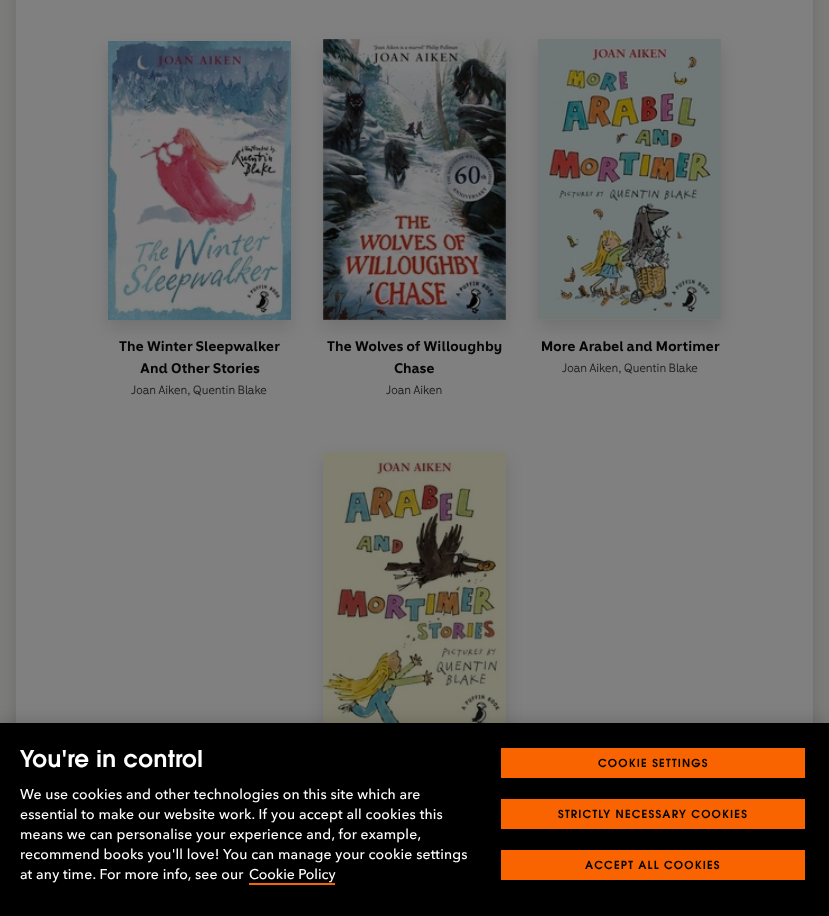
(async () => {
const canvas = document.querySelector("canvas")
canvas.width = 829
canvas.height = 916
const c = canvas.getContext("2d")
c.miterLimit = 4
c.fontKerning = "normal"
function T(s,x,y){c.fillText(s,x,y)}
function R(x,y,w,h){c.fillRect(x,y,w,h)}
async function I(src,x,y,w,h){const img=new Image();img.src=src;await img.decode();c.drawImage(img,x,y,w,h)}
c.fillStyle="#7c7c7b"
R(0,0,829,916)
c.fillStyle="#0606061f"
c.filter="blur(8px)"
c.beginPath()
c.roundRect(16,-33,797,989,16)
c.fill()
c.filter="none"
c.fillStyle="#808080"
R(16,0,797,723)
c.fillStyle="#0606061f"
c.filter="blur(8px)"
c.beginPath()
c.rect(108,49,183,279)
c.fill()
c.filter="none"
await I("1.png",108,41,183,279)
c.letterSpacing="0.2px"
c.font="bold 14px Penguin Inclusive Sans"
c.fillStyle="#060606"
T("The Winter Sleepwalker",119,351)
T("And Other Stories",140,373)
c.letterSpacing="0px"
c.font="12px Penguin Inclusive Sans"
c.fillStyle="#1e1e1e"
T("Joan Aiken, Quentin Blake",131,394)
c.fillStyle="#0606061f"
c.filter="blur(8px)"
c.beginPath()
c.rect(323,47,183,281)
c.fill()
c.filter="none"
await I("2.png",323,39,183,281)
c.letterSpacing="0.2px"
c.font="bold 14px Penguin Inclusive Sans"
c.fillStyle="#060606"
T("The Wolves of Willoughby",327,351)
T("Chase",394,373)
c.letterSpacing="0px"
c.font="12px Penguin Inclusive Sans"
c.fillStyle="#1e1e1e"
T("Joan Aiken",386,394)
c.fillStyle="#0606061f"
c.filter="blur(8px)"
c.beginPath()
c.rect(538,47,183,281)
c.fill()
c.filter="none"
await I("3.png",538,39,183,281)
c.letterSpacing="0.2px"
c.font="bold 14px Penguin Inclusive Sans"
c.fillStyle="#060606"
T("More Arabel and Mortimer",541,351)
c.letterSpacing="0px"
c.font="12px Penguin Inclusive Sans"
c.fillStyle="#1e1e1e"
T("Joan Aiken, Quentin Blake",562,372)
c.fillStyle="#0606061f"
c.filter="blur(8px)"
c.beginPath()
c.rect(323,460,183,281)
c.fill()
c.filter="none"
await I("4.png",323,452,183,271)
c.fillStyle="#00000033"
c.filter="blur(9px)"
c.beginPath()
c.rect(0,723,829,193)
c.fill()
c.filter="none"
c.fillStyle="#000"
R(0,723,829,193)
c.letterSpacing="0.4px"
c.font="600 23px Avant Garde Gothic"
c.fillStyle="#fff"
T("You're in control",20,767)
c.letterSpacing="0.17px"
c.font="500 14px Avenir Next"
T("We use cookies and other technologies on this site which are",20,799)
T("essential to make our website work. If you accept all cookies this",20,819)
T("means we can personalise your experience and, for example,",20,839)
T("recommend books you'll love! You can manage your cookie settings",20,859)
T("at any time. For more info, see our",20,879)
c.letterSpacing="0px"
T("Cookie Policy",249,879)
c.fillStyle="#fa6400"
R(249,883,86,2)
R(501,748,304,30)
c.letterSpacing="1.2px"
c.font="600 11px Avant Garde Gothic"
c.fillStyle="#000"
T("COOKIE SETTINGS",598,767)
c.fillStyle="#fa6400"
R(501,799,304,30)
c.fillStyle="#000"
T("STRICTLY NECESSARY COOKIES",558,818)
c.fillStyle="#fa6400"
R(501,850,304,30)
c.fillStyle="#000"
T("ACCEPT ALL COOKIES",585,869)
})()
